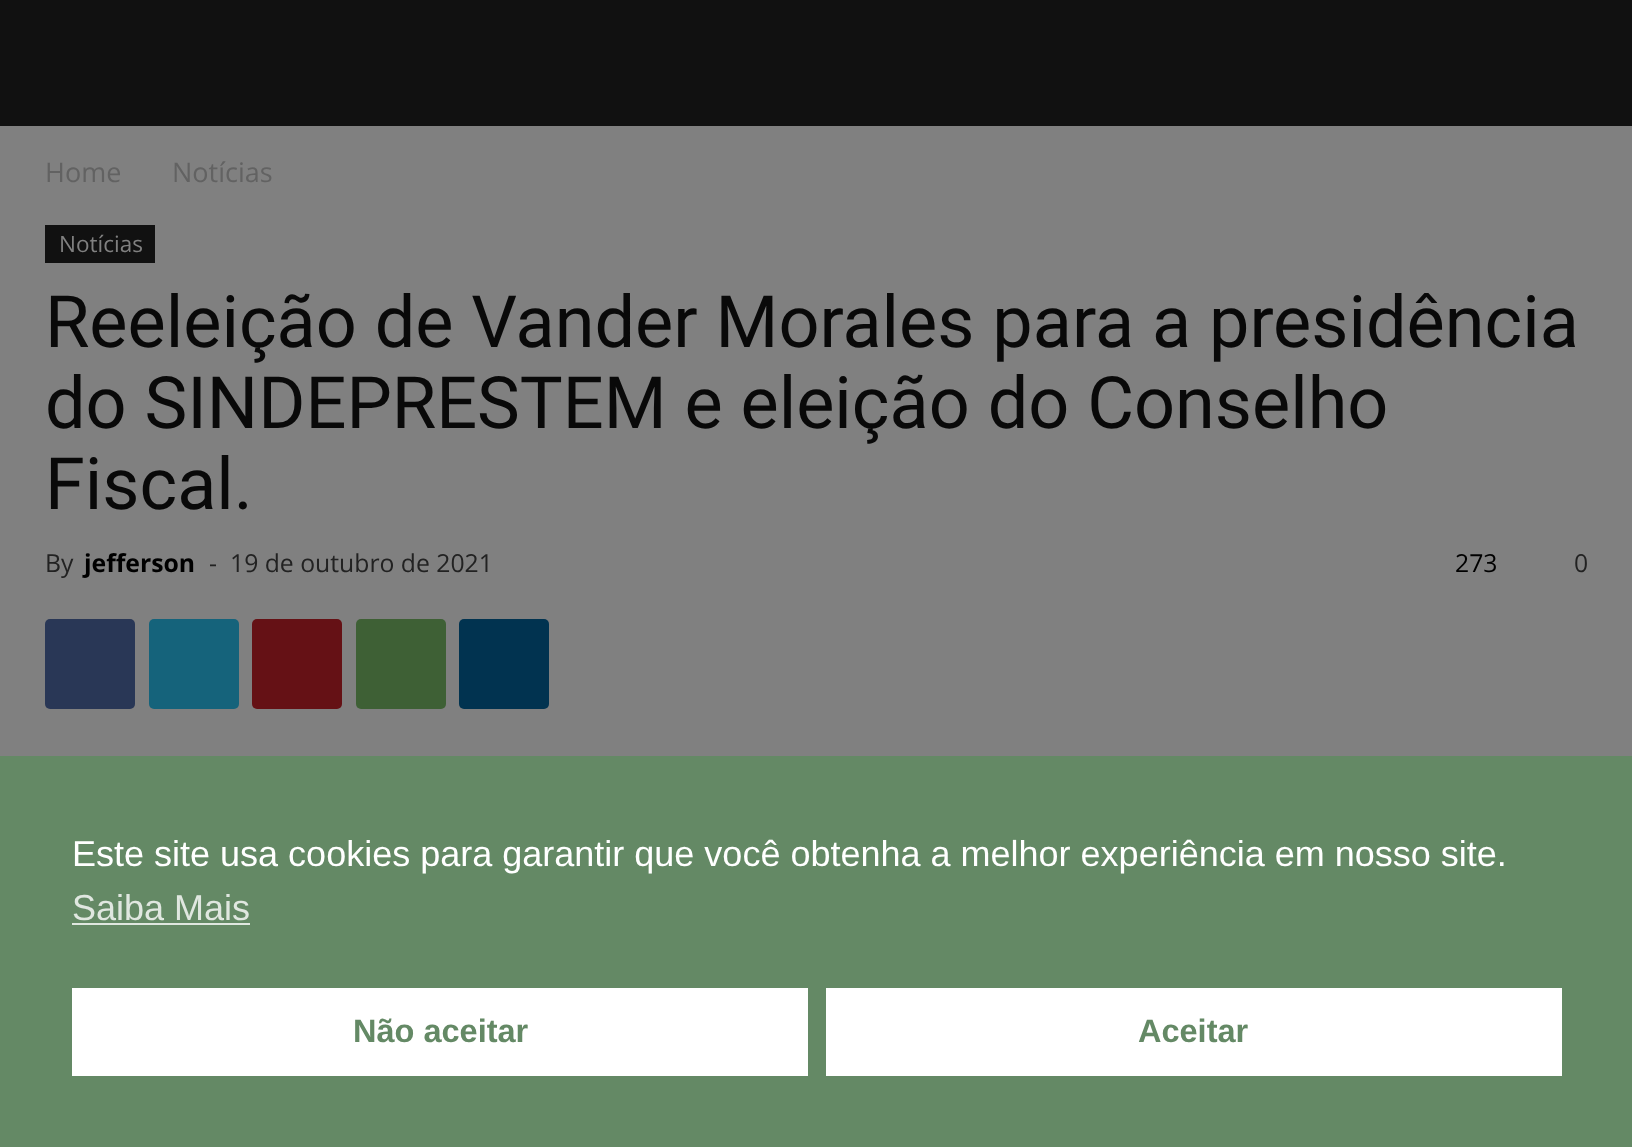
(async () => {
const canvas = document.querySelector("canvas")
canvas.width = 1632
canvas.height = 1147
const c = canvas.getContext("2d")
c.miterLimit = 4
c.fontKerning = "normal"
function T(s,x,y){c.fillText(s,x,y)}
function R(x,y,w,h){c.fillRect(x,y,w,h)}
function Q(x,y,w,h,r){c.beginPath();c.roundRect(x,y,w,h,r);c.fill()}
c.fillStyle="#808080"
R(0,0,1632,1147)
c.fillStyle="#111"
R(0,0,1632,126)
c.font="27px Open Sans"
c.fillStyle="#626262"
T("Home",45,182)
T("Notícias",172,182)
c.fillStyle="#111"
R(45,225,110,38)
c.font="22.5px Open Sans"
c.fillStyle="#808080"
T("Notícias",59,252)
c.font="72px Roboto"
c.fillStyle="#090909"
T("Reeleição de Vander Morales para a presidência",45,347)
T("do SINDEPRESTEM e eleição do Conselho",45,428)
T("Fiscal.",45,509)
c.font="24.75px Open Sans"
c.fillStyle="#222"
T("By",45,572)
c.font="bold 24.75px Open Sans"
c.fillStyle="#000"
T("jefferson",84,572)
c.font="24.75px Open Sans"
c.fillStyle="#222"
T("-",209,572)
T("19 de outubro de 2021",230,572)
c.fillStyle="#000"
T("273",1455,572)
c.fillStyle="#222"
T("0",1574,572)
c.fillStyle="#293756"
Q(45,619,90,90,5)
c.fillStyle="#15637b"
Q(149,619,90,90,5)
c.fillStyle="#651115"
Q(252,619,90,90,5)
c.fillStyle="#3e6035"
Q(356,619,90,90,5)
c.fillStyle="#013350"
Q(459,619,90,90,5)
c.fillStyle="#648965"
R(0,756,1632,391)
c.font="36px Liberation Sans"
c.fillStyle="#fff"
T("Este site usa cookies para garantir que você obtenha a melhor experiência em nosso site.",72,866)
c.fillStyle="#e0e7e0"
T("Saiba Mais",72,920)
R(72,923,178,2)
c.fillStyle="#fff"
R(72,988,736,88)
c.font="bold 32.5px Liberation Sans"
c.fillStyle="#648965"
T("Não aceitar",353,1042)
c.fillStyle="#fff"
R(826,988,736,88)
c.fillStyle="#648965"
T("Aceitar",1138,1042)
})()
